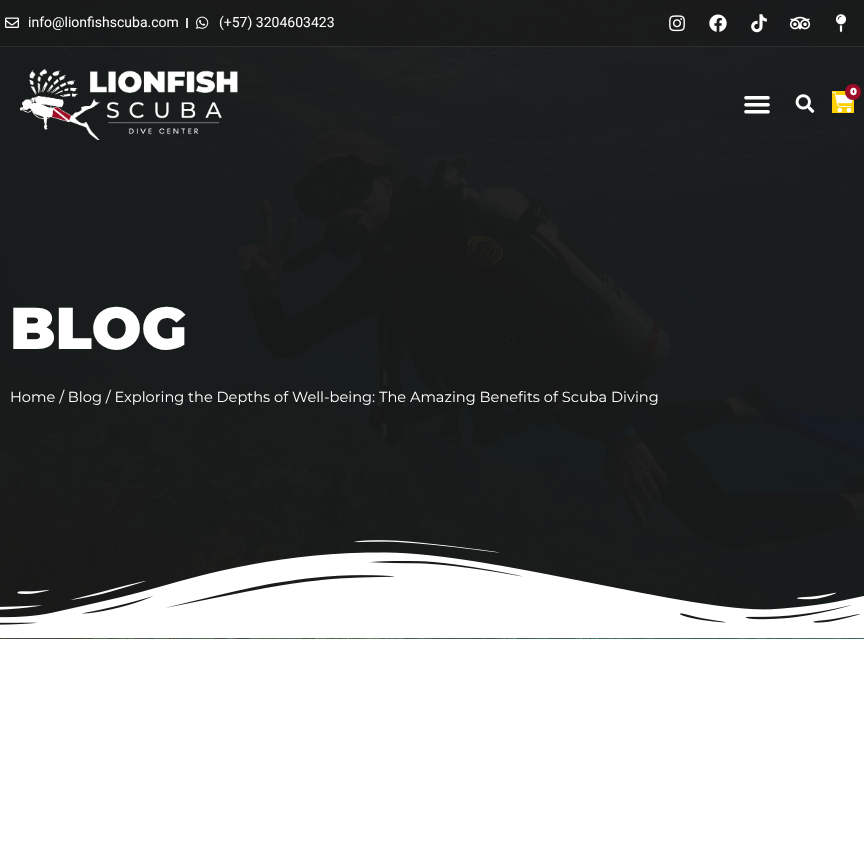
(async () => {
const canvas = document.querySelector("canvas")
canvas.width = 864
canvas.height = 855
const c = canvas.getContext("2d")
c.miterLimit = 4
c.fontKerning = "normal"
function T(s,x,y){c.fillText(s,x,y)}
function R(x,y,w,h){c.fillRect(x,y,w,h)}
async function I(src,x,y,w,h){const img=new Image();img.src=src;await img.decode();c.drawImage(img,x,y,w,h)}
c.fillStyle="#fff"
R(0,0,864,855)
await I("1.png",0,0,864,639)
c.fillStyle="#ffffff17"
R(0,638,864,1)
c.fillStyle="#181818a6"
R(0,0,864,47)
c.fillStyle="#ffffff17"
R(0,46,864,1)
await I("2.png",5,17,14,11)
c.font="14px Roboto"
c.fillStyle="#fff"
T("info@lionfishscuba.com",28,27)
c.fillStyle="#ddd"
R(186,18,2,10)
await I("3.png",196,16,13,13)
c.fillStyle="#fff"
T("(+57) 3204603423",219,27)
await I("4.png",669,15,16,17)
await I("5.png",709,14,18,18)
await I("6.png",751,14,16,19)
await I("7.png",789,16,22,14)
await I("8.png",835,14,12,19)
await I("9.png",20,69,218,71)
c.fillStyle="#ffd000"
R(832,91,22,22)
await I("10.png",832,92,21,21)
c.fillStyle="#a00d26"
c.beginPath()
c.arc(853,92,8,0,7)
c.fill()
c.font="900 10px Montserrat"
c.fillStyle="#fff"
T("0",850,95)
await I("11.png",744,96,26,18)
await I("12.png",795,94,20,19)
c.font="900 59px Montserrat"
T("BLOG",10,349)
c.font="14.6px Montserrat"
T("Home / Blog / Exploring the Depths of Well-being: The Amazing Benefits of Scuba Diving",10,402)
await I("13.png",0,540,864,99)
})()
